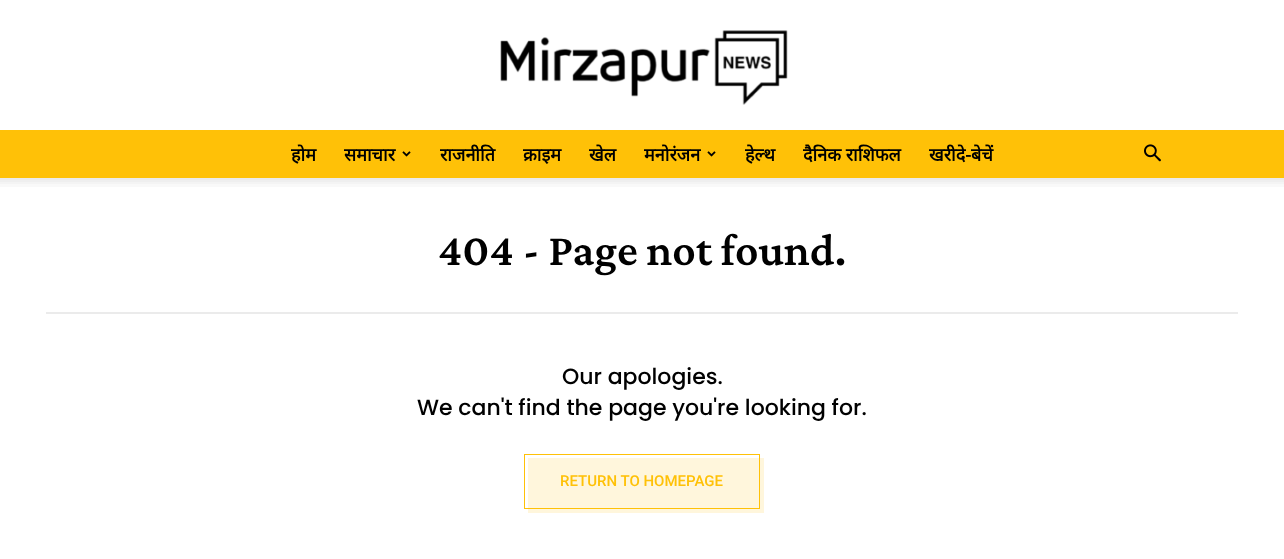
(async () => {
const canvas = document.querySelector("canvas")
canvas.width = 1284
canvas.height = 559
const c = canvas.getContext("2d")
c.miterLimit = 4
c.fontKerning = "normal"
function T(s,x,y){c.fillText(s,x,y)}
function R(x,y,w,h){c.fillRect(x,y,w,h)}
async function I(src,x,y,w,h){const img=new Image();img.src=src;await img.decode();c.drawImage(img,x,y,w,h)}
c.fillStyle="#fff"
R(0,0,1284,559)
await I("1.png",500,30,288,75)
c.fillStyle="#ffc107"
R(0,130,1284,48)
c.font="bold 18px Noto Sans"
c.fillStyle="#000"
T("होम",291,161)
T("समाचार",344,161)
await I("2.png",402,151,9,6)
T("राजनीति",440,161)
T("क्राइम",523,161)
T("खेल",589,161)
T("मनोरंजन",644,161)
await I("2.png",707,151,9,6)
T("हेल्थ",745,161)
T("दैनिक राशिफल",803,161)
T("खरीदे-बेचें",929,161)
await I("3.png",1144,144,17,18)
await I("4.png",0,178,1284,9)
c.font="600 46px Crimson Pro"
T("404 - Page not found.",438,265)
c.fillStyle="#ebebeb"
R(46,312,1192,2)
c.font="500 22px Poppins"
c.fillStyle="#000"
T("Our apologies.",562,384)
T("We can't find the page you're looking for.",417,415)
c.fillStyle="#fff6dc"
R(528,458,236,55)
c.strokeStyle="#ffc107"
c.strokeRect(524.5,454.5,235,54)
c.font="500 15px Roboto"
c.fillStyle="#ffc107"
T("RETURN TO HOMEPAGE",560,486)
})()
